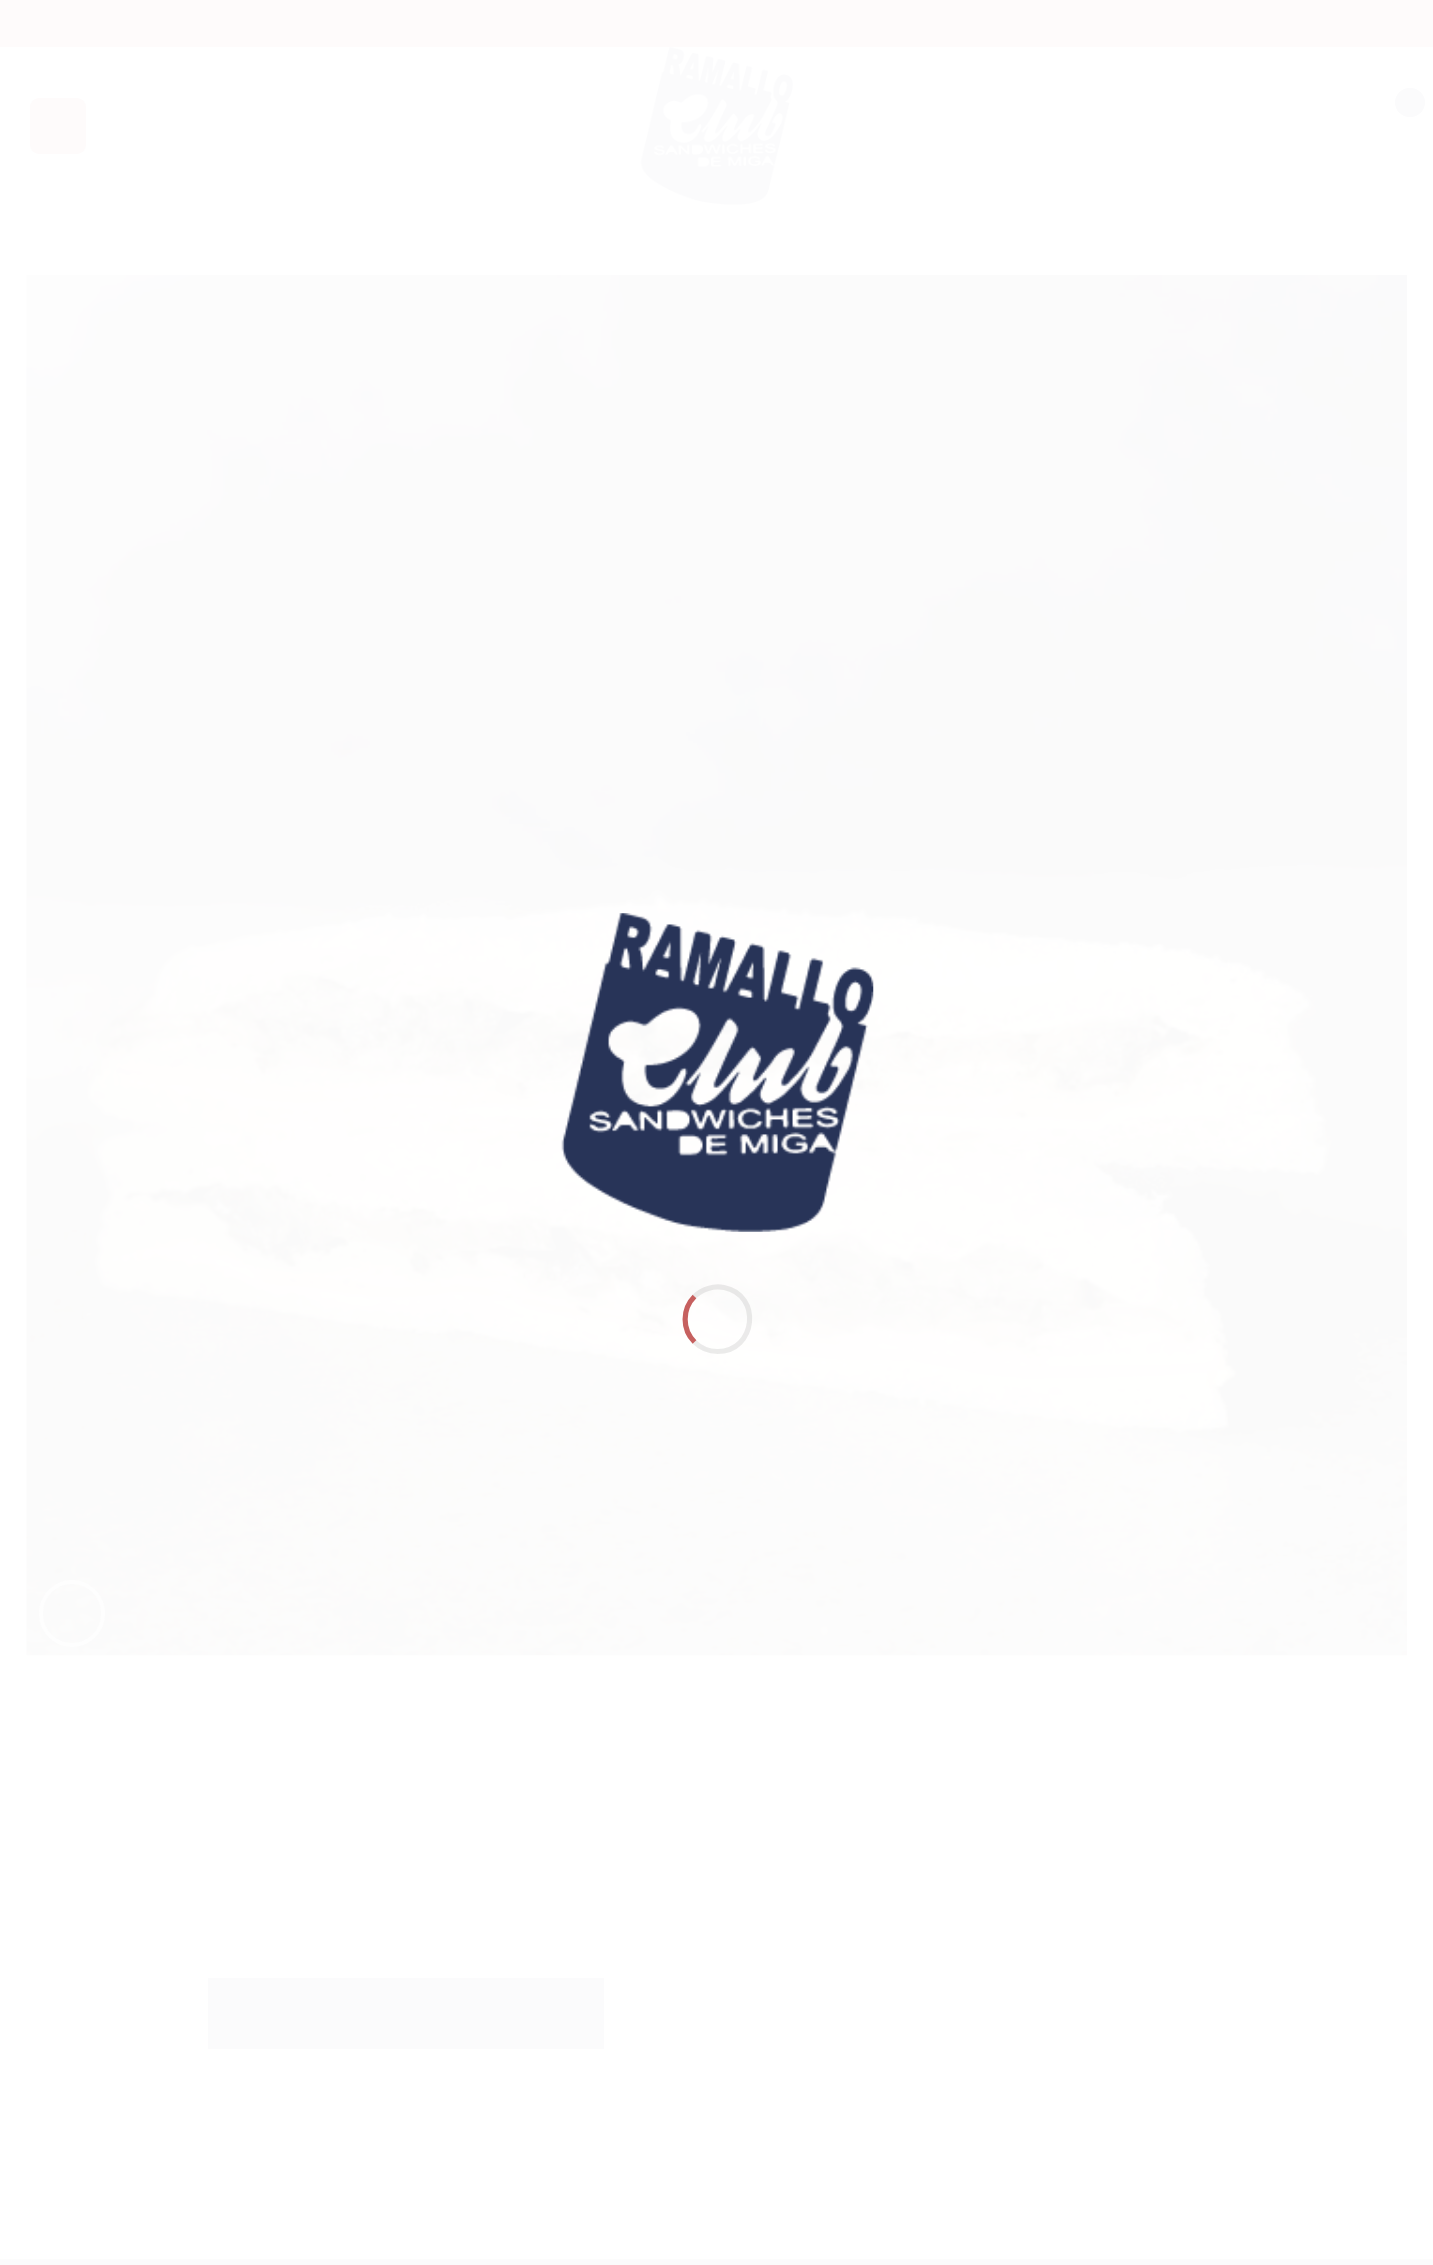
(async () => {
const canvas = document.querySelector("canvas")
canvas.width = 1433
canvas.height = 2265
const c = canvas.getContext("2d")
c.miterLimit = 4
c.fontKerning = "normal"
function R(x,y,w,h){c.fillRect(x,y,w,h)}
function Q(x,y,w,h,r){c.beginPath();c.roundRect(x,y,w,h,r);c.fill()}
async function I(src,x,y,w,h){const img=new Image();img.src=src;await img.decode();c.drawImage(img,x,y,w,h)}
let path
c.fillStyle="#fff"
R(0,0,1433,2265)
c.fillStyle="#fefbfb"
R(0,0,1433,47)
Q(30,98,56,56,9)
await I("1.png",640,47,153,158)
c.fillStyle="#fbfbfc"
Q(1395,88,30,29,14.5)
await I("2.png",26,274,1381,1382)
c.beginPath()
c.roundRect(41,1582,62,63,31)
c.strokeStyle="#fefefe"
c.lineWidth=4
c.stroke()
c.beginPath()
c.rect(209,1979,394,69)
c.fill()
c.strokeStyle="#fbfbfc"
c.lineWidth=2
c.stroke()
await I("3.png",561,913,313,319)
path = new Path2D("M694.5 1296.5c7.5-7.5 19-11 29.5-9c38 7.5 32 64-6.5 64c-8.5 0-17-3.5-23-9.5")
c.strokeStyle="#00000014"
c.lineWidth=5.2
c.stroke(path)
path = new Path2D("M694.5 1342c-12.5-12.5-12.5-33 0-45.5")
c.strokeStyle="#b63332c7"
c.stroke(path)
c.fillStyle="#fcfcfc"
R(0,2259,1433,1)
await I("4.png",0,2259,1433,6)
})()
